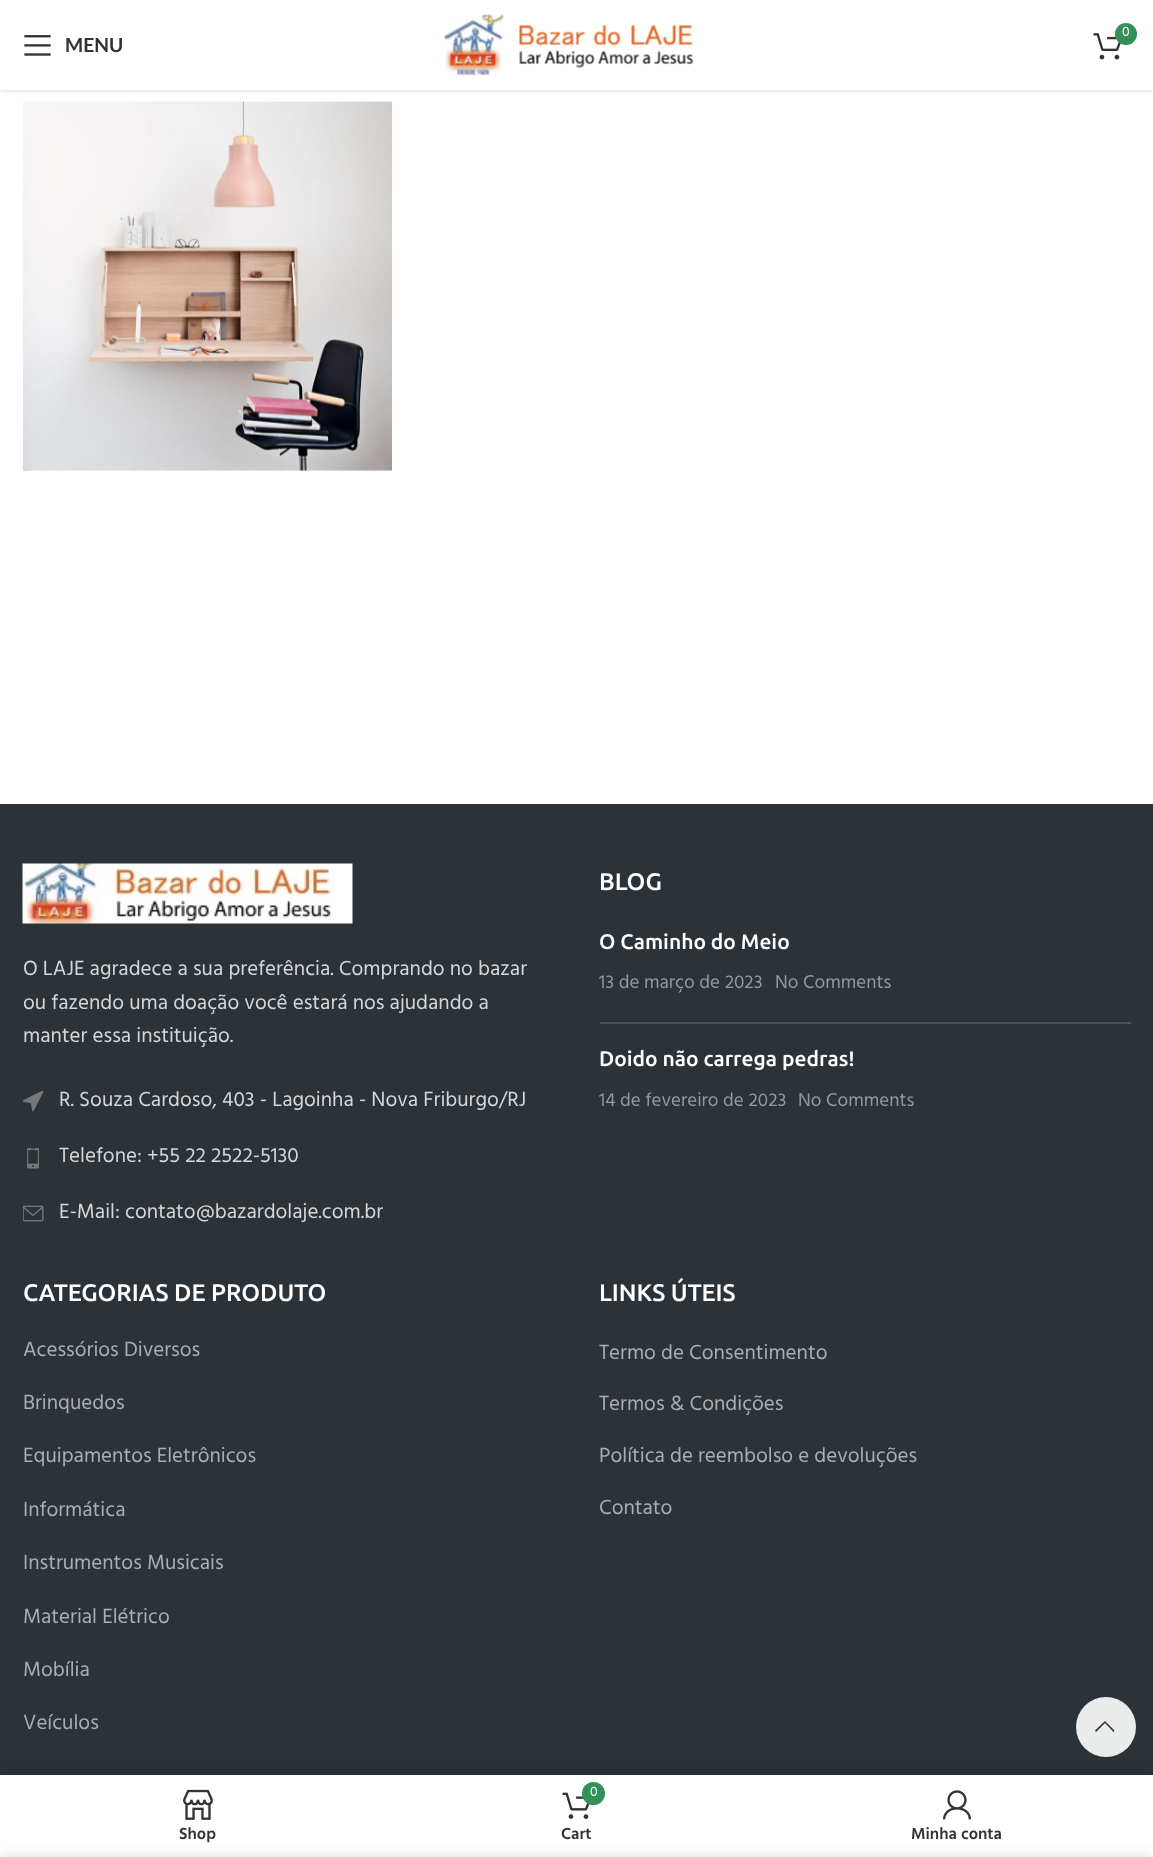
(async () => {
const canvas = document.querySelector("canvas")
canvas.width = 1153
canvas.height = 1857
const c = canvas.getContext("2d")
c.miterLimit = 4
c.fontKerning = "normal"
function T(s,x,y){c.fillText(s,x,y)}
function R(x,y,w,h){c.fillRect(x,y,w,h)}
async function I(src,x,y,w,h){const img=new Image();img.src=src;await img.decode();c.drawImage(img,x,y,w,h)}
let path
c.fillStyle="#fff"
R(0,0,1153,1857)
c.fillStyle="#0000001a"
c.filter="blur(2px)"
c.beginPath()
c.rect(0,2,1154,90)
c.fill()
c.filter="none"
c.fillStyle="#fff"
R(0,0,1153,90)
await I("1.png",444,14,250,62)
await I("2.png",1093,33,28,27)
c.fillStyle="#339059"
c.beginPath()
c.arc(1126,34,11,0,7)
c.fill()
c.font="14px Hind"
c.fillStyle="#fff"
T("0",1122,36)
await I("3.png",24,35,27,21)
c.font="bold 19.5px Lato"
c.fillStyle="#333"
T("MENU",65,52)
await I("4.png",23,101,369,370)
c.fillStyle="#2c3338"
R(0,804,1153,971)
await I("5.png",22,863,331,61)
c.font="21px Hind"
c.fillStyle="#d5d6d7"
T("O LAJE agradece a sua preferência. Comprando no bazar",23,975)
T("ou fazendo uma doação você estará nos ajudando a",23,1009)
T("manter essa instituição.",23,1042)
await I("6.png",23,1091,21,21)
T("R. Souza Cardoso, 403 - Lagoinha - Nova Friburgo/RJ",59,1106)
await I("7.png",27,1148,12,21)
T("Telefone: +55 22 2522-5130",59,1162)
await I("8.png",23,1205,21,17)
T("E-Mail: contato@bazardolaje.com.br",59,1218)
c.font="500 24px Ubuntu"
c.fillStyle="#fff"
T("BLOG",599,890)
c.fillStyle="#4c5256"
R(600,1022,531,2)
c.font="500 21px Ubuntu"
c.fillStyle="#fff"
T("O Caminho do Meio",599,949)
c.font="19px Hind"
c.fillStyle="#96999c"
T("13 de março de 2023",599,988)
T("No Comments",775,988)
c.font="500 21px Ubuntu"
c.fillStyle="#fff"
T("Doido não carrega pedras!",599,1066)
c.font="19px Hind"
c.fillStyle="#96999c"
T("14 de fevereiro de 2023",599,1106)
T("No Comments",798,1106)
c.font="500 24px Ubuntu"
c.fillStyle="#fff"
T("CATEGORIAS DE PRODUTO",23,1301)
c.font="21px Hind"
c.fillStyle="#abadaf"
T("Acessórios Diversos",23,1356)
T("Brinquedos",23,1409)
T("Equipamentos Eletrônicos",23,1462)
T("Informática",23,1516)
T("Instrumentos Musicais",23,1569)
T("Material Elétrico",23,1623)
T("Mobília",23,1676)
T("Veículos",23,1729)
c.font="500 24px Ubuntu"
c.fillStyle="#fff"
T("LINKS ÚTEIS",599,1301)
c.font="21px Hind"
c.fillStyle="#abadaf"
T("Termo de Consentimento",599,1359)
T("Termos & Condições",599,1410)
T("Política de reembolso e devoluções",599,1462)
T("Contato",599,1514)
c.fillStyle="#ffffffe6"
c.beginPath()
c.arc(1106,1727,30,0,7)
c.fill()
c.fillStyle="#333"
path = new Path2D("M1113.5 1732l1-1.5l-9.5-9.5l-10 9.5l1 1.5l9-9z")
c.fill(path)
c.fillStyle="#0000001f"
c.filter="blur(7px)"
c.beginPath()
c.rect(0,1775,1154,82)
c.fill()
c.filter="none"
c.fillStyle="#fff"
R(0,1775,1153,82)
await I("9.png",183,1789,30,31)
c.font="600 16.5px Hind"
c.fillStyle="#333"
T("Shop",179,1839)
await I("10.png",562,1792,28,27)
c.fillStyle="#339059"
c.beginPath()
c.arc(593.5,1793.5,11.5,0,7)
c.fill()
c.font="14px Hind"
c.fillStyle="#fff"
T("0",590,1796)
c.font="600 16.5px Hind"
c.fillStyle="#333"
T("Cart",561,1839)
await I("11.png",943,1790,28,30)
T("Minha conta",911,1839)
c.fillStyle="#00000024"
c.filter="blur(7px)"
c.beginPath()
c.rect(0,1857,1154,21)
c.fill()
c.filter="none"
})()
